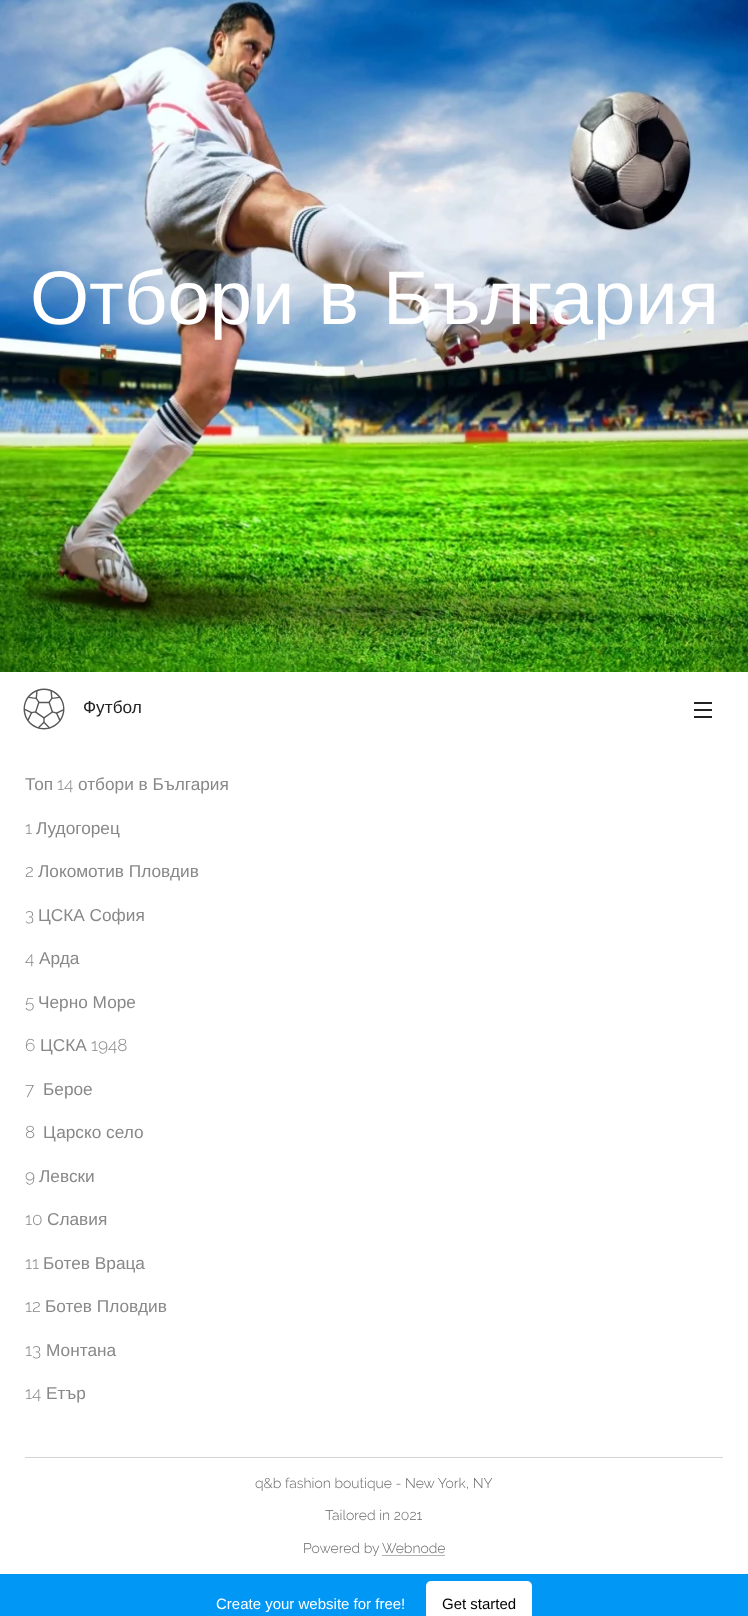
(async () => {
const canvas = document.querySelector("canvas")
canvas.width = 748
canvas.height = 1616
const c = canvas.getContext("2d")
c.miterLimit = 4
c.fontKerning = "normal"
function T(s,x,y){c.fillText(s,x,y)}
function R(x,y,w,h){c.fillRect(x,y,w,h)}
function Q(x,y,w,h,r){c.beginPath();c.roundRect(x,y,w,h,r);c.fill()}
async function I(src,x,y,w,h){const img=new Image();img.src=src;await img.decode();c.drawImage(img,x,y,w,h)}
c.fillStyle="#fff"
R(0,0,748,1616)
await I("1.png",0,0,748,672)
c.wordSpacing="3px"
c.font="76px Liberation Sans"
T("Отбори в България",30,324)
c.wordSpacing="0px"
c.font="17.25px Liberation Sans"
c.fillStyle="#888"
T("Топ",25,790)
c.font="300 17.25px Raleway"
T("14",57,790)
c.font="17.25px Liberation Sans"
T("отбори в България",78,790)
c.font="300 17.25px Raleway"
T("1",25,834)
c.font="17.25px Liberation Sans"
T("Лудогорец",36,834)
c.font="300 17.25px Raleway"
T("2",25,877)
c.font="17.25px Liberation Sans"
T("Локомотив Пловдив",38,877)
c.font="300 17.25px Raleway"
T("3",25,921)
c.font="17.25px Liberation Sans"
T("ЦСКА София",38,921)
c.font="300 17.25px Raleway"
T("4",25,964)
c.font="17.25px Liberation Sans"
T("Арда",39,964)
c.font="300 17.25px Raleway"
T("5",25,1008)
c.font="17.25px Liberation Sans"
T("Черно Море",38,1008)
c.font="300 17.25px Raleway"
T("6",25,1051)
c.font="17.25px Liberation Sans"
T("ЦСКА",40,1051)
c.font="300 17.25px Raleway"
T("1948",91,1051)
T("7",25,1095)
c.font="17.25px Liberation Sans"
T("Берое",43,1095)
c.font="300 17.25px Raleway"
T("8",25,1138)
c.font="17.25px Liberation Sans"
T("Царско село",43,1138)
c.font="300 17.25px Raleway"
T("9",25,1182)
c.font="17.25px Liberation Sans"
T("Левски",39,1182)
c.font="300 17.25px Raleway"
T("10",25,1225)
c.font="17.25px Liberation Sans"
T("Славия",47,1225)
c.font="300 17.25px Raleway"
T("11",25,1269)
c.font="17.25px Liberation Sans"
T("Ботев Враца",43,1269)
c.font="300 17.25px Raleway"
T("12",25,1312)
c.font="17.25px Liberation Sans"
T("Ботев Пловдив",45,1312)
c.font="300 17.25px Raleway"
T("13",25,1356)
c.font="17.25px Liberation Sans"
T("Монтана",46,1356)
c.font="300 17.25px Raleway"
T("14",25,1399)
c.font="17.25px Liberation Sans"
T("Етър",46,1399)
await I("2.png",23,688,42,42)
c.fillStyle="#222"
T("Футбол",83,713)
R(694,709,18,2)
R(694,702,18,2)
R(694,716,18,2)
c.fillStyle="#d4d4d4"
R(25,1457,698,1)
c.font="300 14px Raleway"
c.fillStyle="#666"
T("q&b fashion boutique - New York, NY",255,1488)
T("Tailored in 2021",325,1520)
T("Powered by",303,1553)
c.fillStyle="#b3b3b3"
R(382,1555,63,1)
c.fillStyle="#666"
T("Webnode",382,1553)
c.fillStyle="#0097f5"
R(0,1574,748,42)
c.font="15px Liberation Sans"
c.fillStyle="#fff"
T("Create your website for free!",216,1609)
Q(426,1581,106,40,5)
c.fillStyle="#000"
T("Get started",442,1609)
})()
